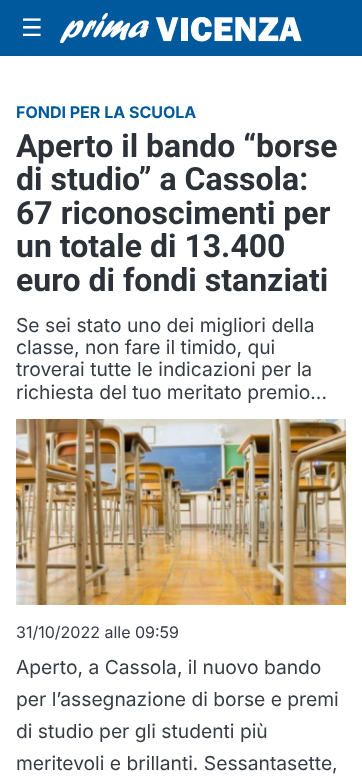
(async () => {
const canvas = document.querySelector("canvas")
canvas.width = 362
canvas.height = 777
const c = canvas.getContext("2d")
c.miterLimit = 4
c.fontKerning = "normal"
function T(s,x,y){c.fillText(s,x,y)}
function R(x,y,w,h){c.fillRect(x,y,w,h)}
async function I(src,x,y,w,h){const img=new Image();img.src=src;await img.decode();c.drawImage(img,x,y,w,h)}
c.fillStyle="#fff"
R(0,0,362,777)
c.fillStyle="#00599c"
R(0,0,362,56)
c.font="24px DejaVu Sans"
c.fillStyle="#fff"
T("☰",21,36)
await I("1.png",60,13,242,30)
c.font="bold 16px Inter"
c.fillStyle="#00599c"
T("FONDI PER LA SCUOLA",16,118)
c.font="bold 32px Roboto"
c.fillStyle="#2d3138"
T("Aperto il bando “borse",16,157)
T("di studio” a Cassola:",16,190)
T("67 riconoscimenti per",16,224)
T("un totale di 13.400",16,257)
T("euro di fondi stanziati",16,291)
c.font="19.25px Inter"
c.fillStyle="#373c44"
T("Se sei stato uno dei migliori della",16,332)
T("classe, non fare il timido, qui",16,354)
T("troverai tutte le indicazioni per la",16,376)
T("richiesta del tuo meritato premio...",16,399)
await I("2.png",16,419,330,186)
c.font="16px Inter"
T("31/10/2022 alle 09:59",16,638)
c.font="19.25px Inter"
T("Aperto, a Cassola, il nuovo bando",16,674)
T("per l’assegnazione di borse e premi",16,706)
T("di studio per gli studenti più",16,738)
T("meritevoli e brillanti. Sessantasette,",16,770)
})()
